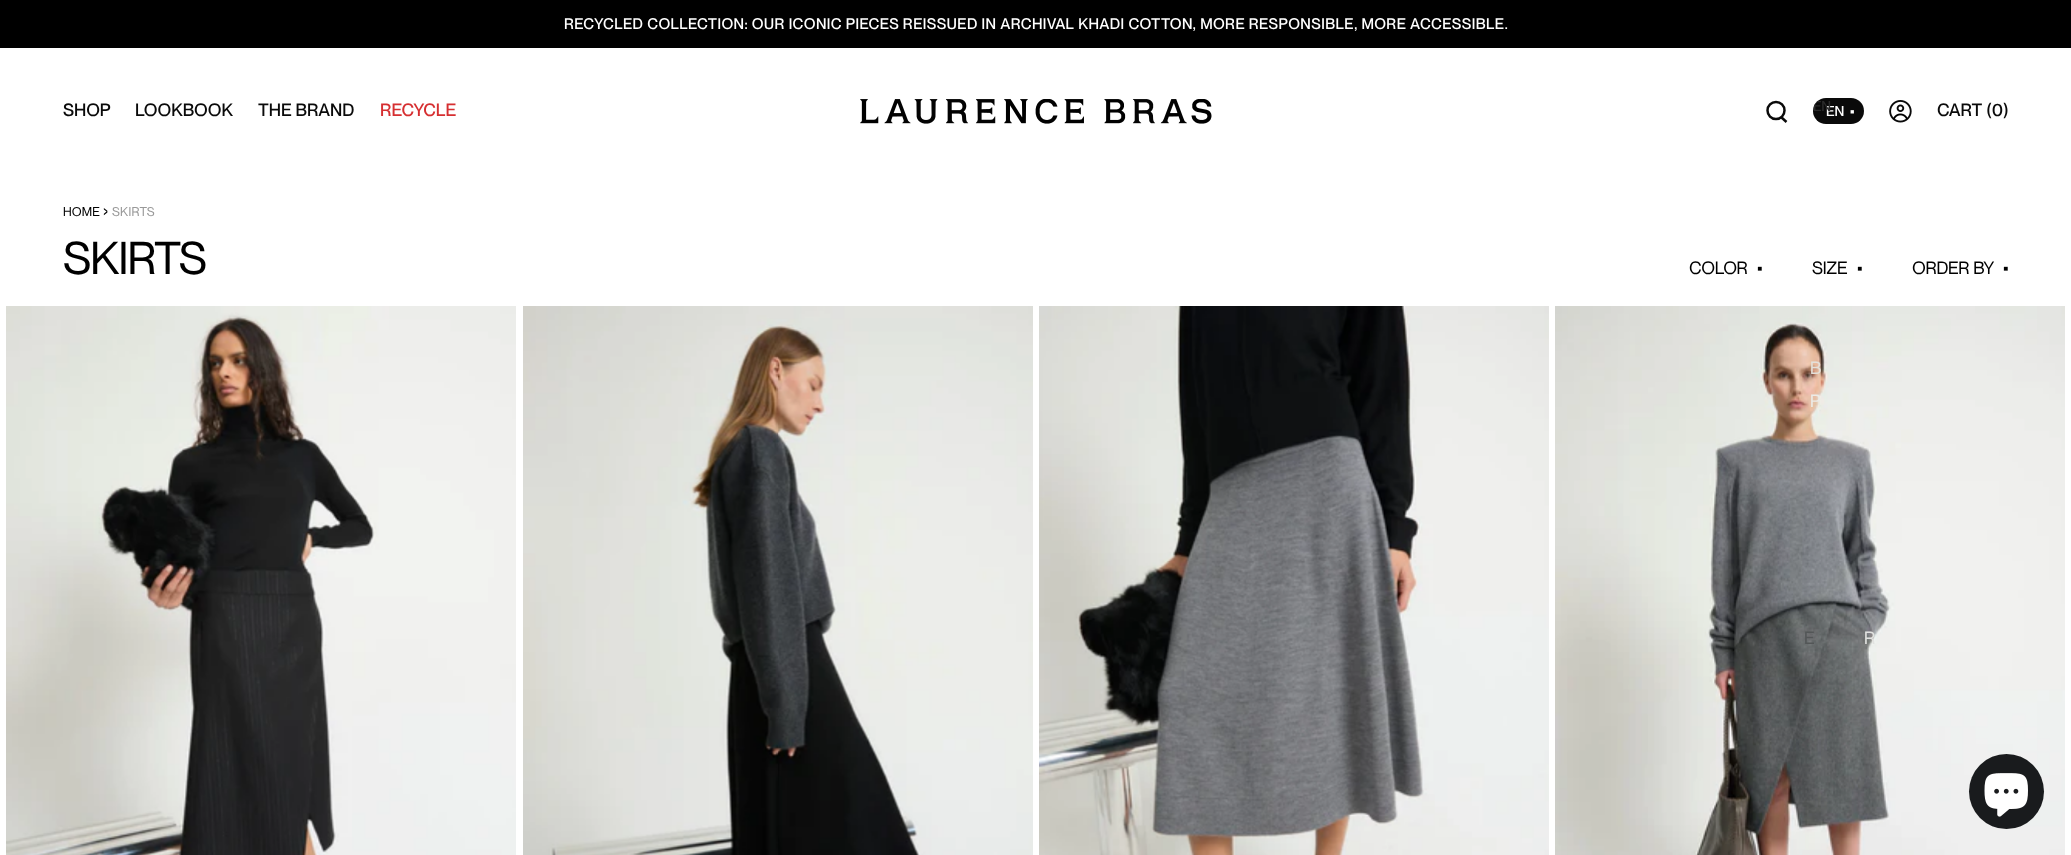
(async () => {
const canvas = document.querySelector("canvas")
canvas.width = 2071
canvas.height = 855
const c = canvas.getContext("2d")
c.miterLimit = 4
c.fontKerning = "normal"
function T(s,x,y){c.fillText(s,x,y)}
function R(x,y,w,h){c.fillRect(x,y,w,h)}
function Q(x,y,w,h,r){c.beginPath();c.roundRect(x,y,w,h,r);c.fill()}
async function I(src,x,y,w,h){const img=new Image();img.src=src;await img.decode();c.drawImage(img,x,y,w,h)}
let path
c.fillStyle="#fff"
R(0,0,2071,855)
c.fillStyle="#000"
R(0,0,2071,48)
c.letterSpacing="0.45px"
c.font="500 15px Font"
c.fillStyle="#fff"
T("RECYCLED COLLECTION: OUR ICONIC PIECES REISSUED IN ARCHIVAL KHADI COTTON, MORE RESPONSIBLE, MORE ACCESSIBLE.",564,29)
c.letterSpacing="0px"
c.font="500 17.5px Font"
c.fillStyle="#0a0a0a"
T("SHOP",63,116)
T("LOOKBOOK",135,116)
T("THE BRAND",258,116)
c.fillStyle="#d62f31"
T("RECYCLE",380,116)
await I("1.png",860,99,352,25)
c.beginPath()
c.arc(1776,110.5,8.5,0,7)
c.strokeStyle="#0a0a0a"
c.lineWidth=2.5
c.stroke()
path = new Path2D("M1781 117l5.5 5")
c.stroke(path)
c.fillStyle="#0a0a0a"
Q(1813,98,51,26,13)
c.font="500 14px Font"
c.fillStyle="#fff"
T("EN",1826,116)
c.save()
c.beginPath()
c.roundRect(1813,98,51,26,13)
c.clip()
c.letterSpacing="-0.25px"
c.fillStyle="#2a2a2a"
T("EN",1813,111)
c.restore()
c.letterSpacing="-0.25px"
T("•",1850,116)
await I("2.png",1889,100,23,23)
c.letterSpacing="0px"
c.font="500 17.5px Font"
c.fillStyle="#0a0a0a"
T("CART (0",1937,116)
T(")",2003,116)
c.letterSpacing="0.25px"
c.font="12.5px Font"
c.fillStyle="#000"
T("HOME",63,216)
c.letterSpacing="-0.25px"
c.font="17.5px Font"
T("›",103,216)
c.letterSpacing="0.25px"
c.font="12.5px Font"
c.fillStyle="#999"
T("SKIRTS",112,216)
c.letterSpacing="-1px"
c.font="45px Font"
c.fillStyle="#000"
T("SKIRTS",63,274)
c.letterSpacing="-0.25px"
c.font="17.5px Font"
T("COLOR",1689,274)
T("•",1757,274)
T("SIZE",1812,274)
T("•",1857,274)
await I("6.png",1555,306,510,549)
c.fillStyle="#535657"
T("E",1804,644)
c.fillStyle="#e1e2e0"
T("R",1864,644)
c.fillStyle="#000"
T("ORDER BY",1912,274)
T("•",2003,274)
c.fillStyle="#e4e0d9"
T("B",1810,374)
c.fillStyle="#ecebe7"
T("P",1810,407)
await I("3.png",6,306,510,549)
await I("4.png",523,306,510,549)
await I("5.png",1039,306,510,549)
c.fillStyle="#191b1d"
c.beginPath()
c.arc(2006.5,791.5,37.5,0,7)
c.fill()
await I("7.png",1984,773,44,44)
})()
